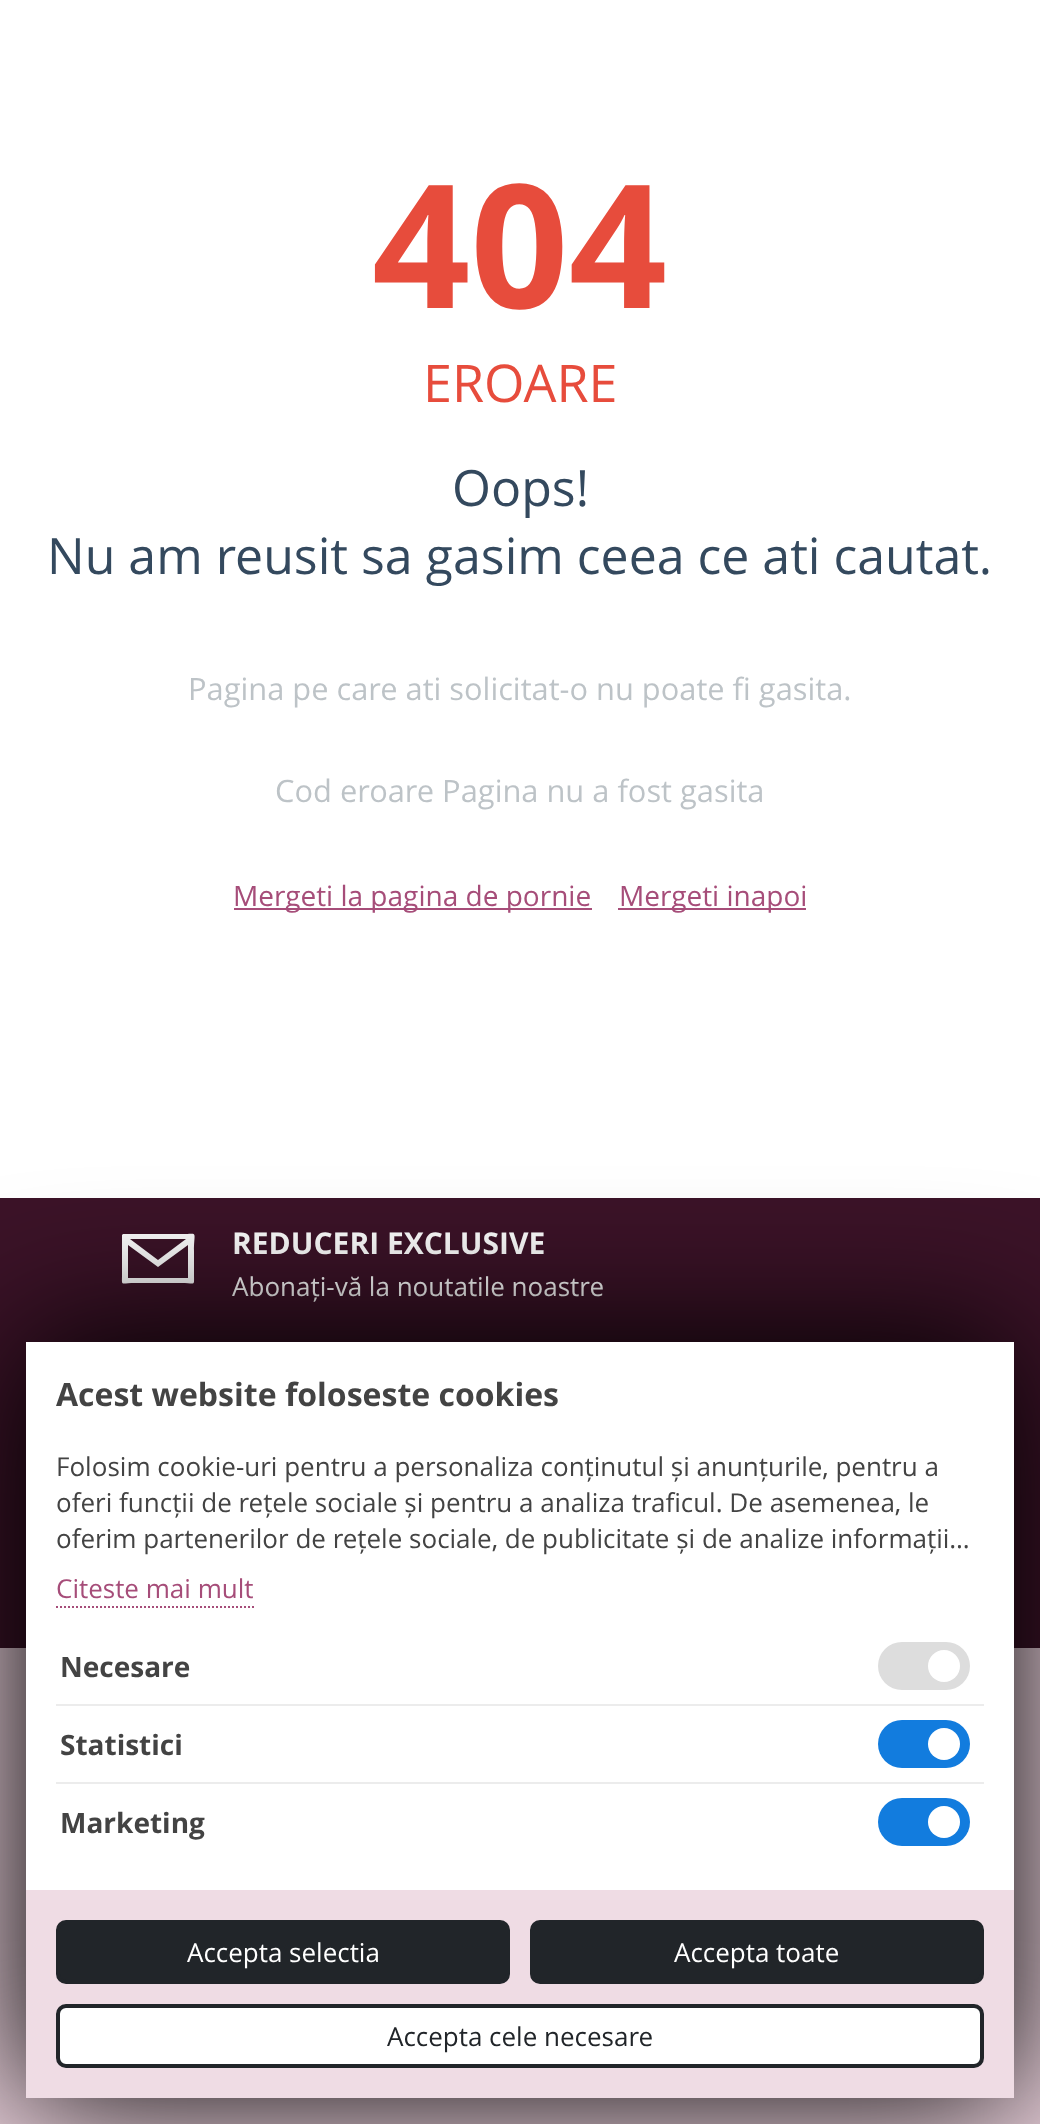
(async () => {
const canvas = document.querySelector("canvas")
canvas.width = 1040
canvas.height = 2124
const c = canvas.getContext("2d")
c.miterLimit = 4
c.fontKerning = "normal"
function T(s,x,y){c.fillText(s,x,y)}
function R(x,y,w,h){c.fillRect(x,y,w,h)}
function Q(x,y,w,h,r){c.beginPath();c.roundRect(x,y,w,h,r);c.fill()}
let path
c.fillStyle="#fff"
R(0,0,1040,2124)
c.font="bold 172px Open Sans"
c.fillStyle="#e74c3c"
T("404",372,308)
c.font="52px Open Sans"
T("EROARE",423,402)
c.font="50px Open Sans"
c.fillStyle="#34495e"
T("Oops!",452,506)
T("Nu am reusit sa gasim ceea ce ati cautat.",47,574)
c.font="30.8px Open Sans"
c.fillStyle="#bdc3c7"
T("Pagina pe care ati solicitat-o nu poate fi gasita.",188,700)
T("Cod eroare Pagina nu a fost gasita",275,802)
c.fillStyle="#a64d79"
R(234,908,358,2)
c.font="28px Open Sans"
T("Mergeti la pagina de pornie",233,906)
R(618,908,188,2)
T("Mergeti inapoi",619,906)
c.fillStyle="#ead1dc"
R(0,1648,1040,476)
c.fillStyle="#3c1328"
R(0,1198,1040,450)
c.fillStyle="#fff"
path = new Path2D("M123 1234l-1 1v39c0 13-2 9 13 9h46c15 0 13 4 13-9v-23c0-21 5-17-13-17zm63 5l-28 21l-28-21zm2 39h-60v-33l30 22l30-22z")
c.fill(path)
c.font="bold 30px Open Sans"
T("REDUCERI EXCLUSIVE",232,1254)
c.font="26px Open Sans"
T("Abonați-vă la noutatile noastre",232,1296)
c.fillStyle="#000"
c.filter="blur(70px)"
c.beginPath()
c.rect(18,1334,1000,768)
c.fill()
c.filter="none"
c.fillStyle="#fff"
R(26,1342,988,548)
c.font="bold 32px Open Sans"
c.fillStyle="#434343"
T("Acest website foloseste cookies",56,1406)
c.font="26px Open Sans"
T("Folosim cookie-uri pentru a personaliza conținutul și anunțurile, pentru a",56,1476)
T("oferi funcții de rețele sociale și pentru a analiza traficul. De asemenea, le",56,1512)
T("oferim partenerilor de rețele sociale, de publicitate și de analize informații…",56,1548)
path = new Path2D("M56 1607h198")
c.strokeStyle="#a64d79"
c.lineWidth=2
c.setLineDash([2,2])
c.stroke(path)
c.fillStyle="#a64d79"
T("Citeste mai mult",56,1598)
c.fillStyle="#ececec"
R(56,1704,928,2)
c.font="bold 28px Open Sans"
c.fillStyle="#434343"
T("Necesare",60,1677)
c.fillStyle="#ddd"
Q(878,1642,92,48,24)
c.fillStyle="#fff"
c.beginPath()
c.arc(944,1666,16,0,7)
c.fill()
c.fillStyle="#ececec"
R(56,1782,928,2)
c.fillStyle="#434343"
T("Statistici",60,1755)
c.fillStyle="#127cde"
Q(878,1720,92,48,24)
c.fillStyle="#fff"
c.beginPath()
c.arc(944,1744,16,0,7)
c.fill()
c.fillStyle="#434343"
T("Marketing",60,1833)
c.fillStyle="#127cde"
Q(878,1798,92,48,24)
c.fillStyle="#fff"
c.beginPath()
c.arc(944,1822,16,0,7)
c.fill()
c.fillStyle="#efdce4"
R(26,1890,988,208)
c.fillStyle="#212529"
c.beginPath()
c.roundRect(58,1922,450,60,8)
c.fill()
c.strokeStyle="#212529"
c.lineWidth=4
c.setLineDash([])
c.stroke()
c.font="26px Open Sans"
c.fillStyle="#fff"
T("Accepta selectia",187,1962)
c.fillStyle="#212529"
c.beginPath()
c.roundRect(532,1922,450,60,8)
c.fill()
c.stroke()
c.fillStyle="#fff"
T("Accepta toate",674,1962)
c.beginPath()
c.roundRect(58,2006,924,60,8)
c.fill()
c.stroke()
c.fillStyle="#212529"
T("Accepta cele necesare",387,2046)
})()
